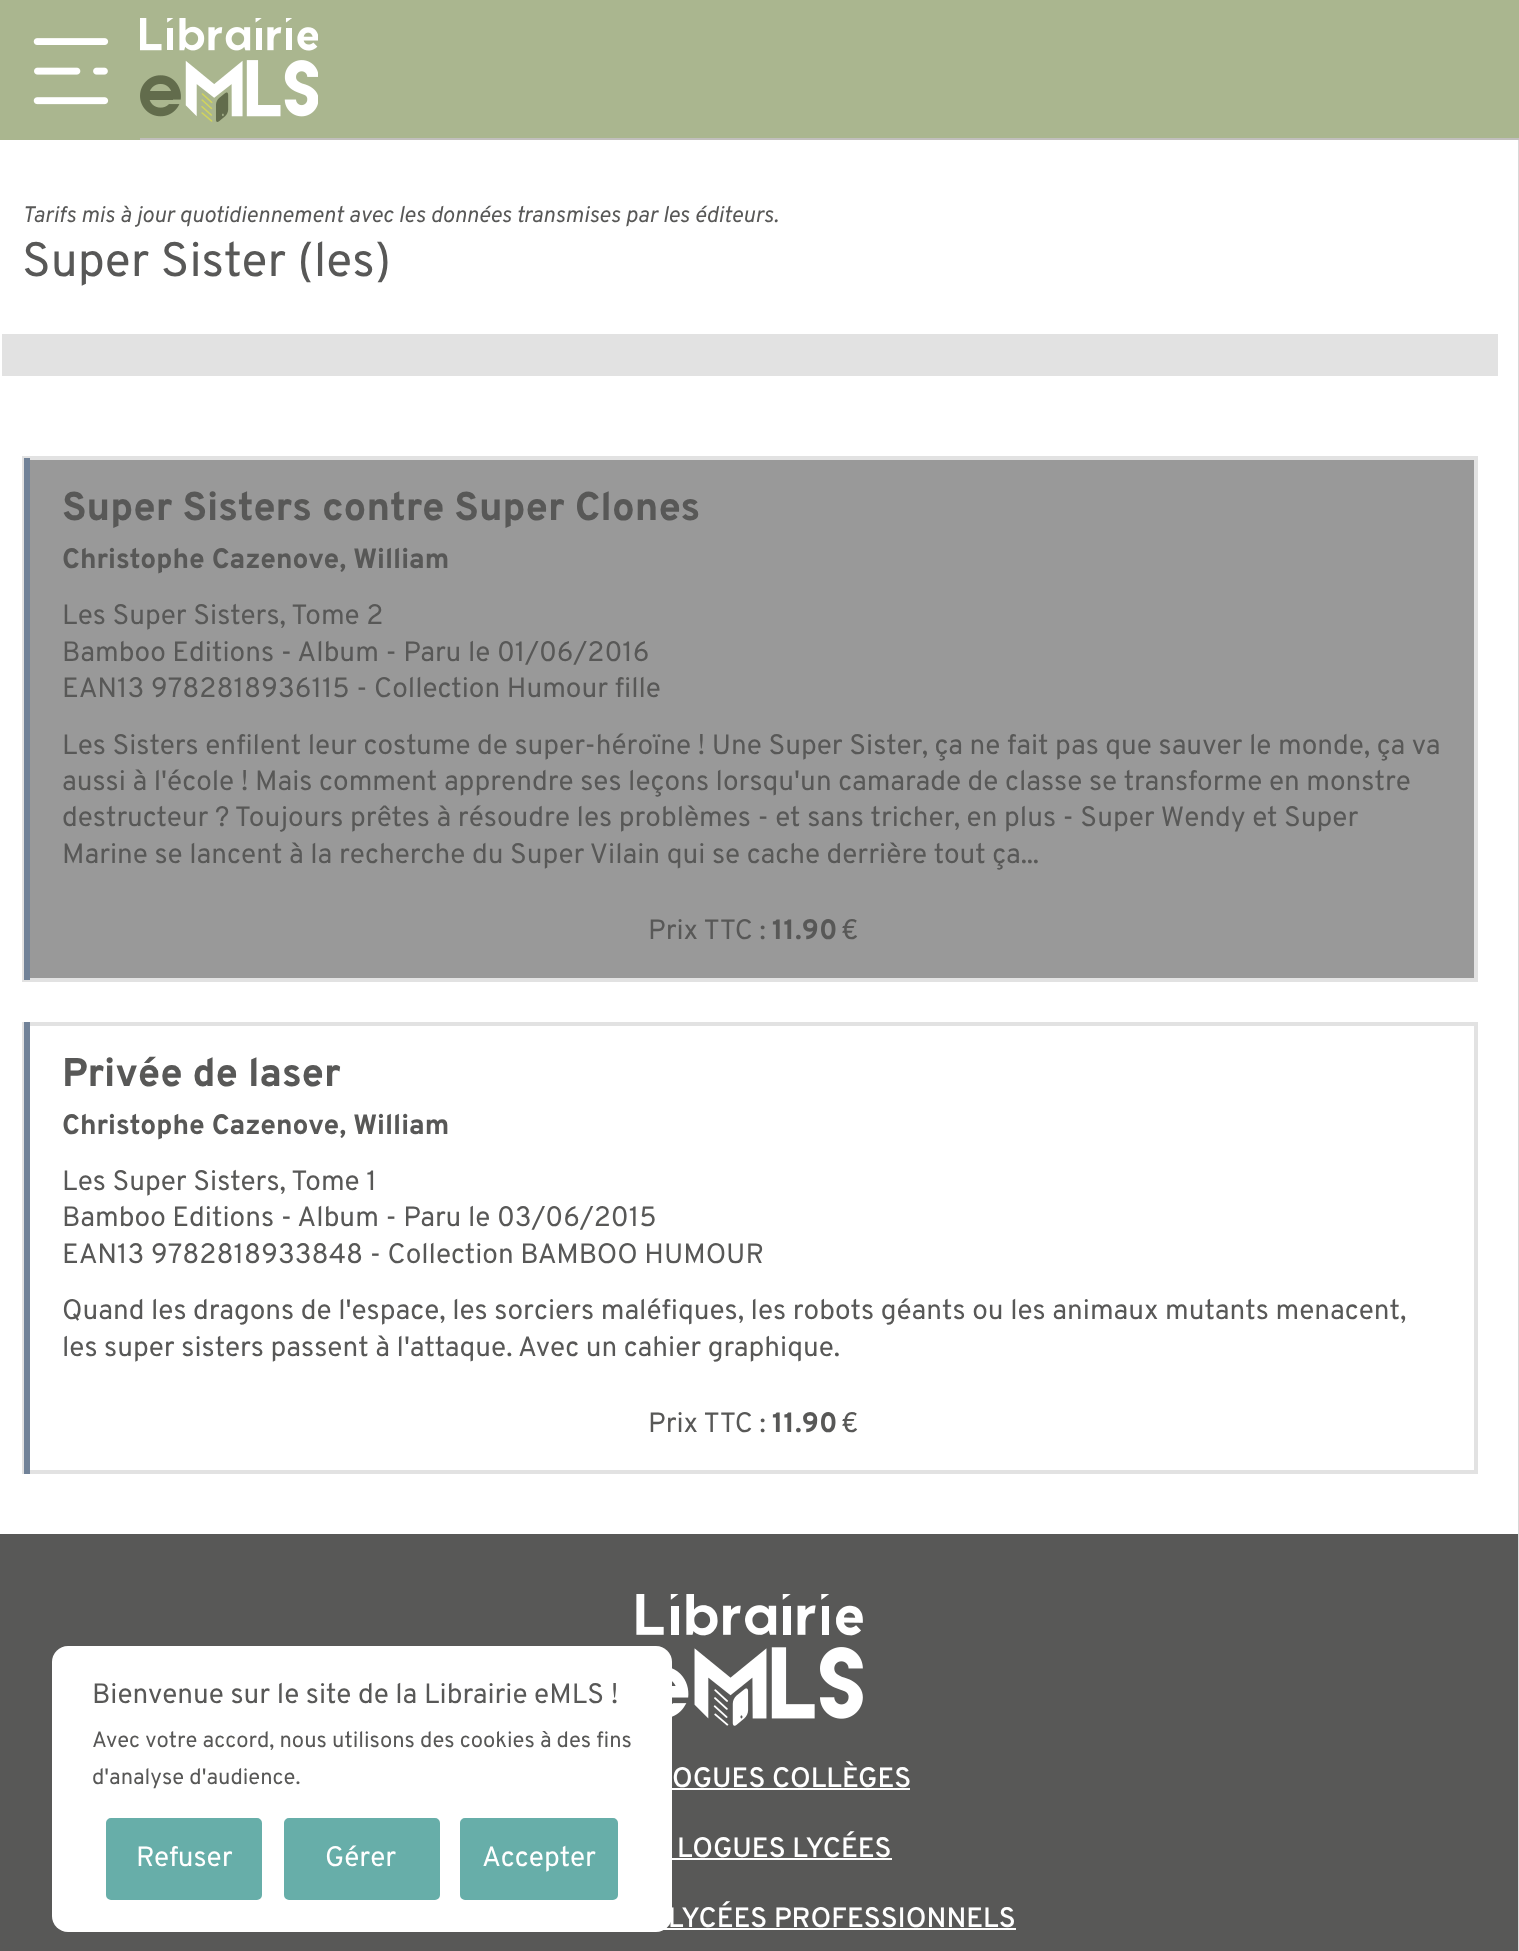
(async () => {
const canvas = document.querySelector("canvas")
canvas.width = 1519
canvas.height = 1951
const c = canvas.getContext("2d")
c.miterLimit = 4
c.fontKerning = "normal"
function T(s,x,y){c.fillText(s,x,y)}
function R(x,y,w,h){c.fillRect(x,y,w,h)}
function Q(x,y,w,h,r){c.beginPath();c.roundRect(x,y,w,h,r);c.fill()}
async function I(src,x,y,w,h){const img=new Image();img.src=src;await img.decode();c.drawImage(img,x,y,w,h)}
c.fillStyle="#fff"
R(0,0,1519,1951)
c.fillStyle="#aab68f"
R(140,0,1379,138)
c.fillStyle="#c1bfbc"
R(140,138,1379,2)
c.fillStyle="#aab68f"
R(0,0,140,140)
await I("1.png",33,38,76,67)
await I("2.png",140,18,178,104)
c.fillStyle="#d8d8d8"
R(1518,140,1,1811)
c.font="italic 22.4px Overpass"
c.fillStyle="#585857"
T("Tarifs mis à jour quotidiennement avec les données transmises par les éditeurs.",22,222)
c.font="48px Overpass"
T("Super Sister (les)",22,276)
c.fillStyle="#e2e2e2"
R(2,334,1496,42)
c.fillStyle="#999"
R(30,460,1444,518)
c.strokeStyle="#e2e2e2"
c.lineWidth=4
c.strokeRect(24,458,1452,522)
c.fillStyle="#718298"
R(24,458,6,522)
c.font="800 40px Overpass"
c.fillStyle="#585857"
T("Super Sisters contre Super Clones",62,520)
c.font="800 28px Overpass"
T("Christophe Cazenove, William",62,568)
c.font="28px Overpass"
T("Les Super Sisters, Tome 2",62,624)
T("Bamboo Editions - Album - Paru le 01/06/2016",62,661)
T("EAN13 9782818936115 - Collection Humour fille",62,697)
T("Les Sisters enfilent leur costume de super-héroïne ! Une Super Sister, ça ne fait pas que sauver le monde, ça va",62,754)
T("aussi à l'école ! Mais comment apprendre ses leçons lorsqu'un camarade de classe se transforme en monstre",62,790)
T("destructeur ? Toujours prêtes à résoudre les problèmes - et sans tricher, en plus - Super Wendy et Super",62,826)
T("Marine se lancent à la recherche du Super Vilain qui se cache derrière tout ça...",62,863)
T("Prix TTC :",648,939)
c.font="800 28px Overpass"
T("11.90",772,939)
c.font="28px Overpass"
T("€",841,939)
c.strokeRect(24,1024,1452,448)
c.fillStyle="#718298"
R(24,1022,6,452)
c.font="800 40px Overpass"
c.fillStyle="#585857"
T("Privée de laser",62,1086)
c.font="800 28px Overpass"
T("Christophe Cazenove, William",62,1134)
c.font="28px Overpass"
T("Les Super Sisters, Tome 1",62,1190)
T("Bamboo Editions - Album - Paru le 03/06/2015",62,1226)
T("EAN13 9782818933848 - Collection BAMBOO HUMOUR",62,1263)
T("Quand les dragons de l'espace, les sorciers maléfiques, les robots géants ou les animaux mutants menacent,",62,1319)
T("les super sisters passent à l'attaque. Avec un cahier graphique.",62,1356)
T("Prix TTC :",648,1432)
c.font="800 28px Overpass"
T("11.90",772,1432)
c.font="28px Overpass"
T("€",841,1432)
R(0,1534,1518,417)
await I("3.png",636,1594,227,132)
c.font="600 28px Overpass"
c.fillStyle="#fff"
T("OGUES COLLÈGES",672,1787)
R(672,1788,238,2)
T("LOGUES LYCÉES",677,1857)
R(672,1858,220,2)
T("LYCÉES PROFESSIONNELS",668,1927)
R(663,1928,353,2)
Q(52,1646,620,286,16)
c.font="28px Overpass"
c.fillStyle="#585857"
T("Bienvenue sur le site de la Librairie eMLS !",92,1703)
c.font="22px Overpass"
T("Avec votre accord, nous utilisons des cookies à des fins",92,1747)
T("d'analyse d'audience.",92,1784)
c.fillStyle="#67aea9"
c.beginPath()
c.roundRect(107,1819,154,80,4)
c.fill()
c.strokeStyle="#67aea9"
c.lineWidth=2
c.stroke()
c.font="28px Overpass"
c.fillStyle="#fff"
T("Refuser",136,1866)
c.fillStyle="#67aea9"
c.beginPath()
c.roundRect(285,1819,154,80,4)
c.fill()
c.stroke()
c.fillStyle="#fff"
T("Gérer",325,1866)
c.fillStyle="#67aea9"
c.beginPath()
c.roundRect(461,1819,156,80,4)
c.fill()
c.stroke()
c.fillStyle="#fff"
T("Accepter",482,1866)
})()
